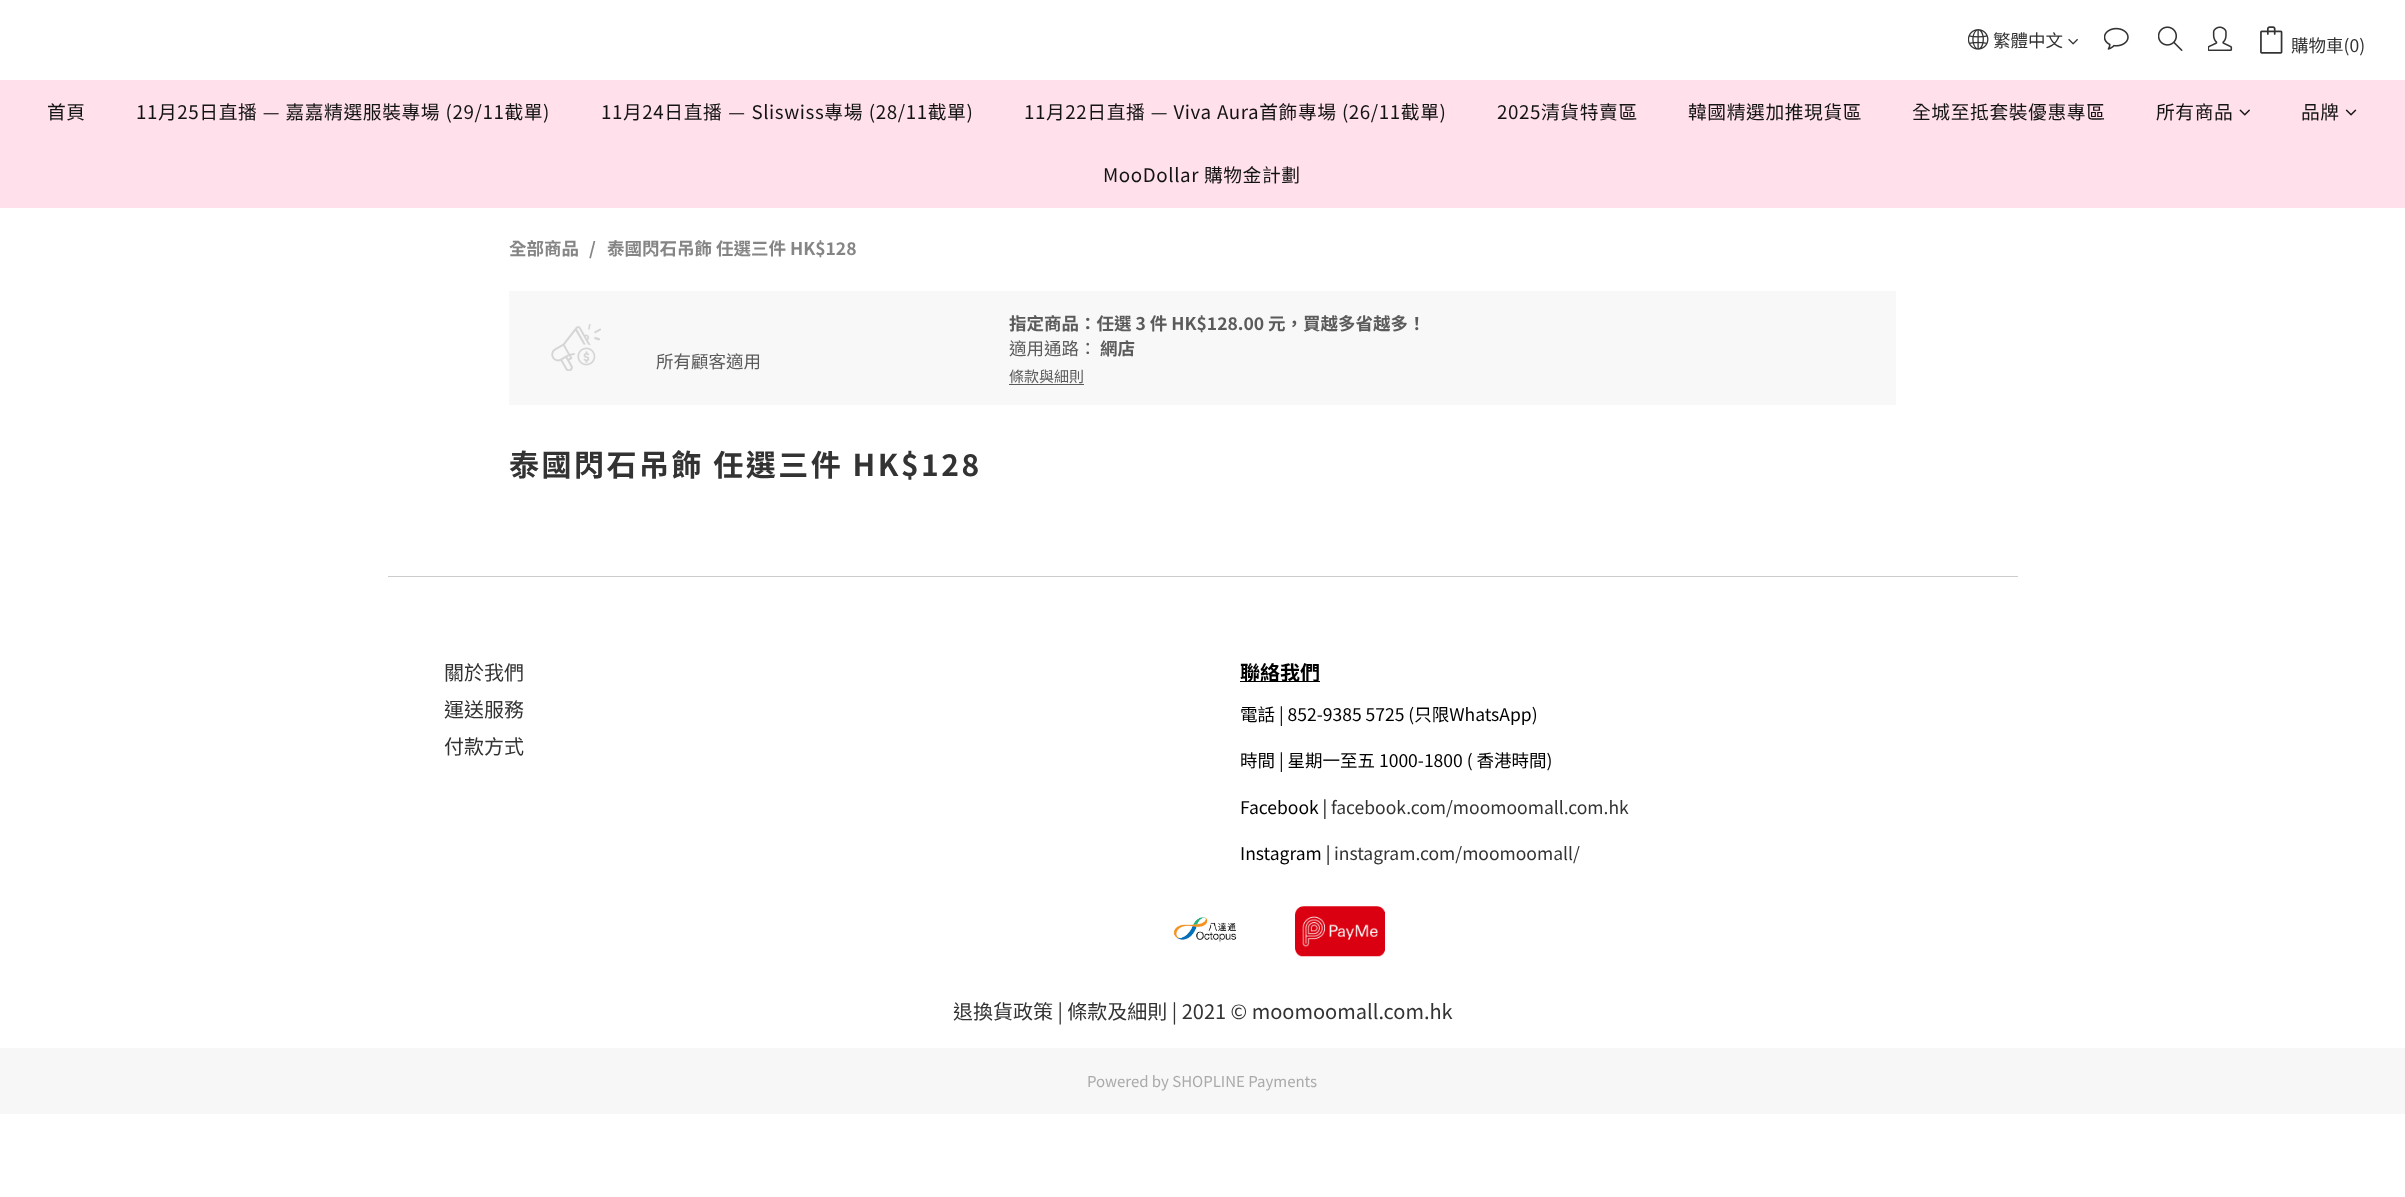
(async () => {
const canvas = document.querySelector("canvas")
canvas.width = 2405
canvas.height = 1197
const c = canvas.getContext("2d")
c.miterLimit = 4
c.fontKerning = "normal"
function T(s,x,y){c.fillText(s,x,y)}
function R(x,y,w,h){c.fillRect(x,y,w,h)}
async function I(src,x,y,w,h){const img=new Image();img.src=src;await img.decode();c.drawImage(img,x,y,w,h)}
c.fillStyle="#fff"
R(0,0,2405,1197)
await I("1.png",1968,29,21,21)
c.font="17.5px Noto Sans TC"
c.fillStyle="#333"
T("繁體中文",1993,47)
await I("2.png",2068,38,10,7)
await I("3.png",2104,27,25,23)
await I("4.png",2158,26,25,25)
await I("5.png",2208,26,25,25)
await I("6.png",2260,26,23,28)
T("購物車(0)",2291,52)
c.fillStyle="#ffe0eb"
R(0,80,2405,128)
c.letterSpacing="0.6px"
c.font="18.75px Noto Sans TC"
c.fillStyle="#131313"
T("首頁",47,119)
c.wordSpacing="0.5px"
T("11月25日直播 — 嘉嘉精選服裝專場 (29/11截單)",136,119)
c.wordSpacing="1px"
T("11月24日直播 — Sliswiss專場 (28/11截單)",601,119)
c.wordSpacing="0.5px"
T("11月22日直播 — Viva Aura首飾專場 (26/11截單)",1024,119)
c.wordSpacing="0px"
T("2025清貨特賣區",1497,119)
T("韓國精選加推現貨區",1688,119)
T("全城至抵套裝優惠專區",1912,119)
T("所有商品",2156,119)
await I("7.png",2239,109,11,7)
T("品牌",2301,119)
await I("8.png",2345,109,12,7)
T("MooDollar 購物金計劃",1103,182)
c.letterSpacing="0px"
c.font="bold 17.5px Noto Sans TC"
c.fillStyle="#858585"
T("全部商品",509,255)
T("/",589,255)
T("泰國閃石吊飾 任選三件 HK$128",607,255)
c.fillStyle="#f8f8f8"
R(509,291,1387,114)
await I("9.png",551,324,50,47)
c.font="17.5px Noto Sans TC"
c.fillStyle="#5b5b5b"
T("所有顧客適用",656,368)
c.font="bold 17.5px Noto Sans TC"
T("指定商品：任選 3 件 HK$128.00 元，買越多省越多！",1009,330)
c.font="17.5px Noto Sans TC"
T("適用通路：",1009,355)
c.font="bold 17.5px Noto Sans TC"
T("網店",1100,355)
c.font="15px Noto Sans TC"
T("條款與細則",1009,382)
R(1009,384,75,1)
c.letterSpacing="2.5px"
c.font="bold 30px Noto Sans TC"
c.fillStyle="#333"
T("泰國閃石吊飾 任選三件 HK$128",509,476)
c.fillStyle="#ccc"
R(388,576,1630,1)
c.letterSpacing="0px"
c.font="20px Noto Sans TC"
c.fillStyle="#333"
T("關於我們",444,680)
T("運送服務",444,717)
T("付款方式",444,754)
c.fillStyle="#000"
R(1240,681,80,1)
c.font="bold 20px Noto Sans TC"
T("聯絡我們",1240,680)
c.font="17.5px Noto Sans TC"
T("電話 | 852-9385 5725 (只限WhatsApp)",1240,721)
T("時間 | 星期一至五 1000-1800 ( 香港時間)",1240,767)
T("Facebook |",1240,814)
c.fillStyle="#333"
T("facebook.com/moomoomall.com.hk",1331,814)
c.fillStyle="#000"
T("Instagram |",1240,860)
c.fillStyle="#333"
T("instagram.com/moomoomall/",1334,860)
await I("10.png",1172,916,65,26)
await I("11.png",1295,906,90,51)
c.font="20px Noto Sans TC"
T("退換貨政策 | 條款及細則 | 2021 © moomoomall.com.hk",953,1019)
c.fillStyle="#f7f7f7"
R(0,1048,2405,66)
c.font="15px Noto Sans TC"
c.fillStyle="#aaa"
T("Powered by SHOPLINE Payments",1087,1087)
})()
